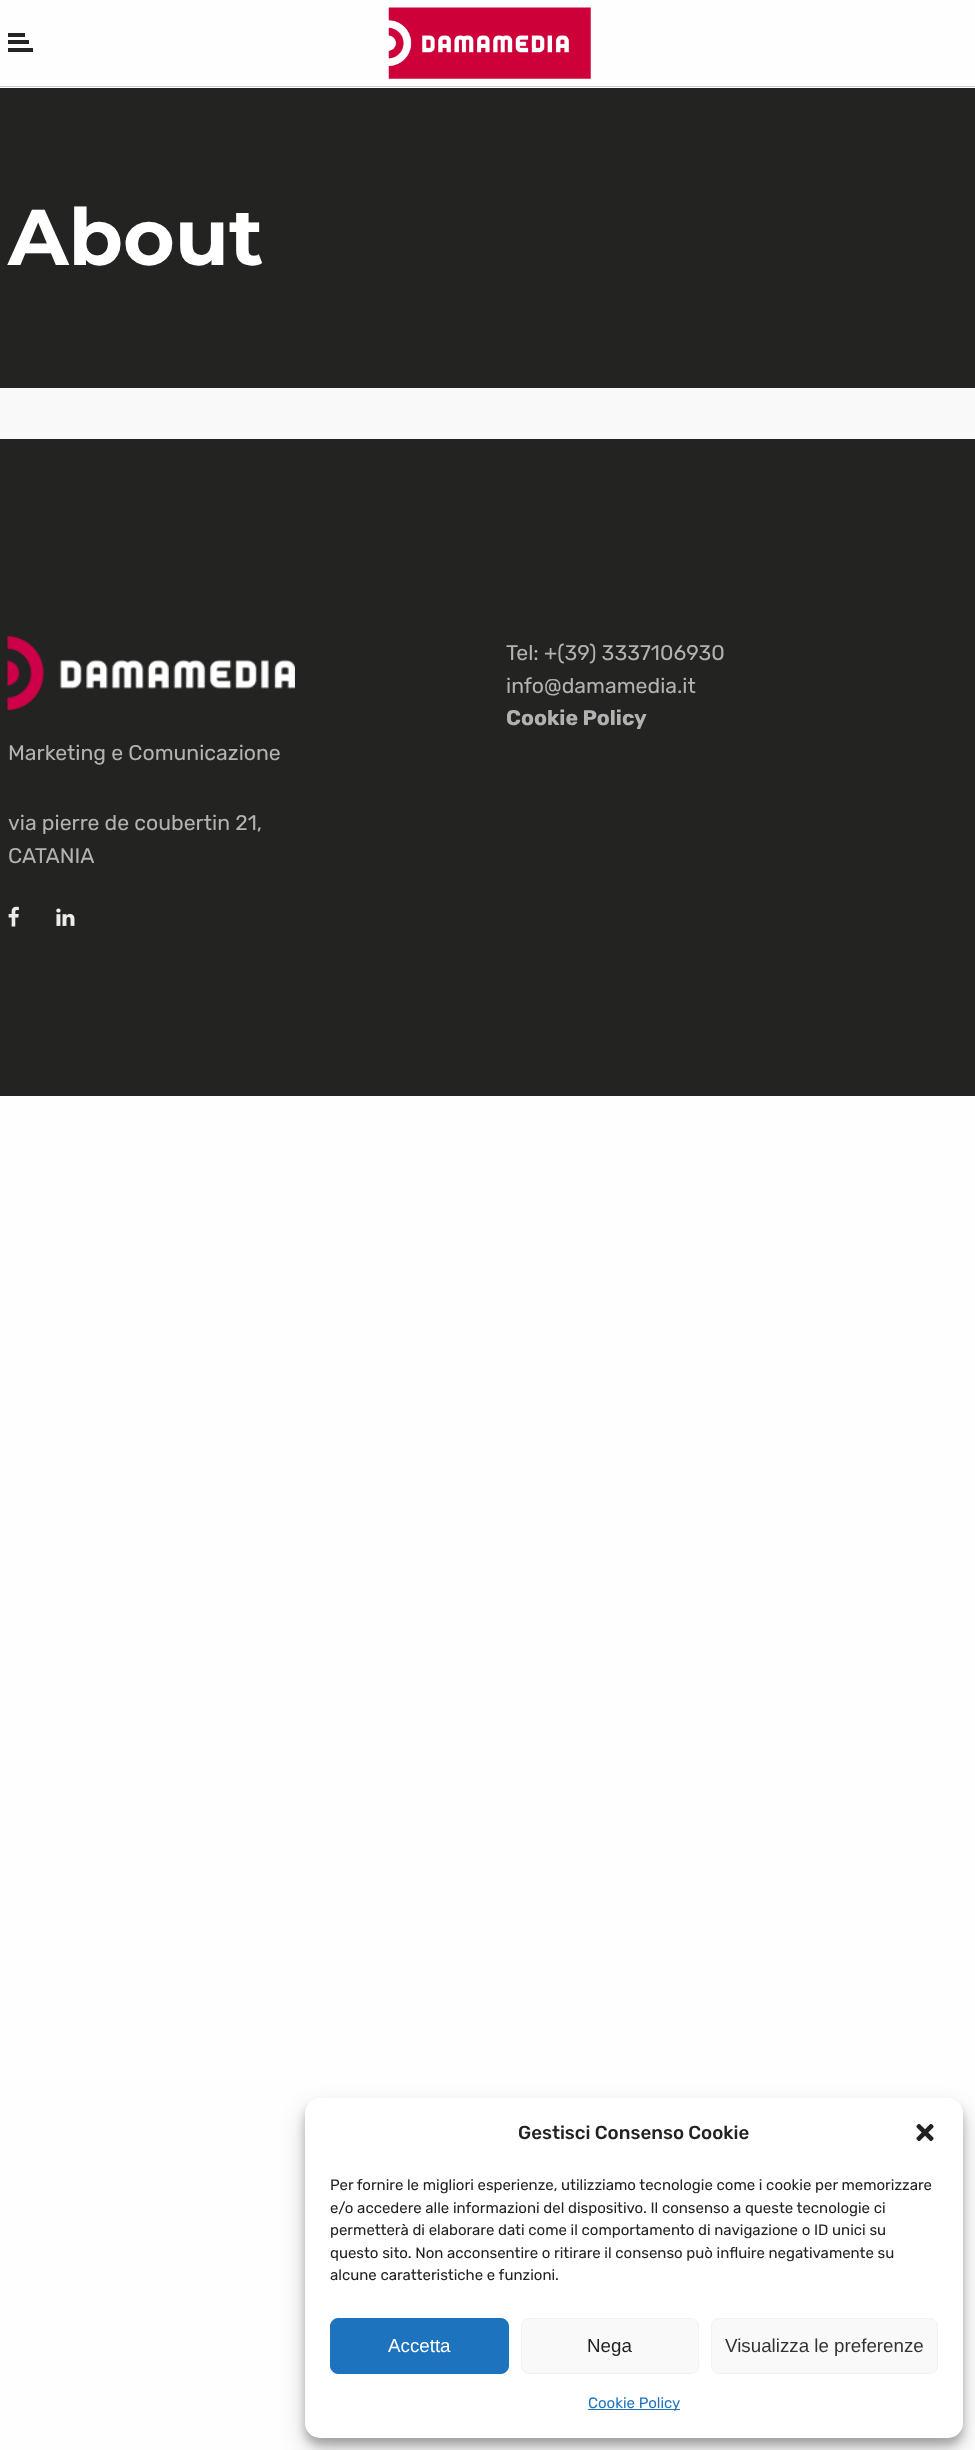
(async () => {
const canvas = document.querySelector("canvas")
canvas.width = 975
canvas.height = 2450
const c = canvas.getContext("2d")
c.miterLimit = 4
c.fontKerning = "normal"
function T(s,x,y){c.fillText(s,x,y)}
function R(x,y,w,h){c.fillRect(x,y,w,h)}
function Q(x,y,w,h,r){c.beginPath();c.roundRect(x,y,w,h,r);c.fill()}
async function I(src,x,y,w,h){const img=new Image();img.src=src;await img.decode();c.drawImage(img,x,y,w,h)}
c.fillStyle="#fefefe"
R(0,0,975,2450)
c.fillStyle="#cdcdcd"
R(0,86,975,1)
c.fillStyle="#232322"
R(8,33,17,4)
R(8,40,21,4)
R(8,48,25,4)
await I("1.png",388,7,203,72)
c.fillStyle="#f9f9f9"
R(0,388,975,51)
c.fillStyle="#232322"
R(0,88,975,300)
c.font="bold 79px Montserrat"
c.fillStyle="#fff"
T("About",8,265)
c.fillStyle="#232322"
R(0,439,975,657)
c.font="21.25px Rubik"
c.fillStyle="#b2b2b2"
T("Tel: +(39) 3337106930",506,660)
T("info@damamedia.it",506,693)
c.font="bold 21.25px Rubik"
T("Cookie Policy",506,725)
await I("2.png",7,636,288,74)
c.font="21.25px Rubik"
T("Marketing e Comunicazione",8,760)
T("via pierre de coubertin 21,",8,830)
T("CATANIA",8,863)
await I("3.png",8,906,11,21)
await I("4.png",56,908,19,18)
c.fillStyle="#0000003b"
c.filter="blur(4px)"
c.beginPath()
c.roundRect(305,2105,658,340,15)
c.fill()
c.filter="none"
c.fillStyle="#00000030"
c.filter="blur(12.5px)"
c.beginPath()
c.roundRect(305,2110,658,340,15)
c.fill()
c.filter="none"
c.fillStyle="#fff"
Q(305,2098,658,340,15)
c.font="500 18.75px Rubik"
c.fillStyle="#222"
T("Gestisci Consenso Cookie",518,2139)
await I("5.png",916,2123,18,18)
c.font="15px Rubik"
T("Per fornire le migliori esperienze, utilizziamo tecnologie come i cookie per memorizzare",330,2190)
T("e/o accedere alle informazioni del dispositivo. Il consenso a queste tecnologie ci",330,2213)
T("permetterà di elaborare dati come il comportamento di navigazione o ID unici su",330,2235)
T("questo sito. Non acconsentire o ritirare il consenso può influire negativamente su",330,2258)
T("alcune caratteristiche e funzioni.",330,2280)
c.fillStyle="#1e73be"
c.beginPath()
c.roundRect(330.5,2318.5,178,55,7.5)
c.fill()
c.strokeStyle="#1e73be"
c.stroke()
c.font="18.75px Liberation Sans"
c.fillStyle="#fff"
T("Accetta",388,2352)
c.fillStyle="#f9f9f9"
c.beginPath()
c.roundRect(521.5,2318.5,177,55,7.5)
c.fill()
c.strokeStyle="#f2f2f2"
c.stroke()
c.fillStyle="#222"
T("Nega",587,2352)
c.fillStyle="#f9f9f9"
c.beginPath()
c.roundRect(711.5,2318.5,226,55,7.5)
c.fill()
c.stroke()
c.fillStyle="#333"
T("Visualizza le preferenze",725,2352)
c.fillStyle="#1e73be"
R(588,2409,92,1)
c.font="15px Rubik"
T("Cookie Policy",588,2408)
})()
